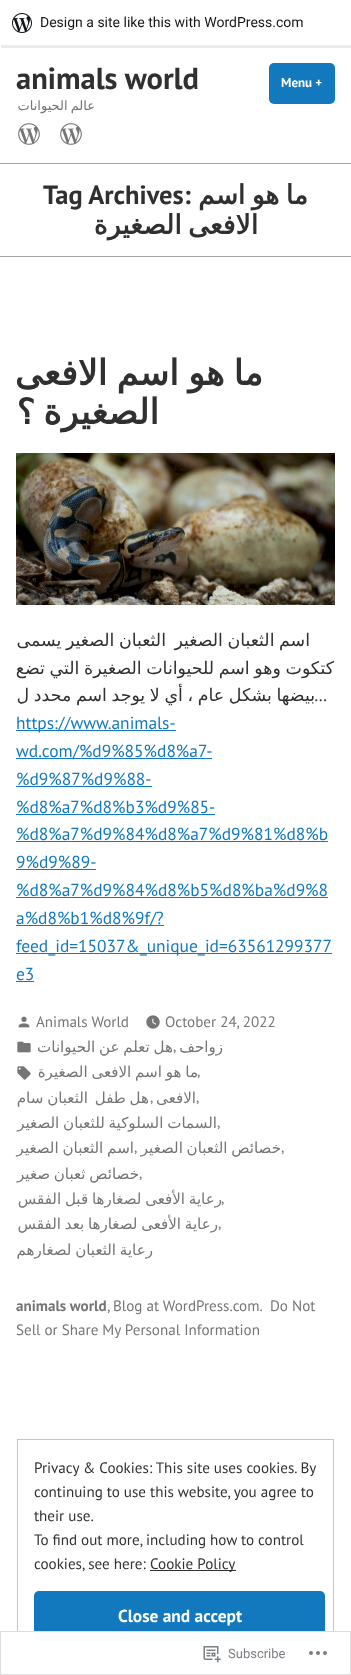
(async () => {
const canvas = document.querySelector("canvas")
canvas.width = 351
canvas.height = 1675
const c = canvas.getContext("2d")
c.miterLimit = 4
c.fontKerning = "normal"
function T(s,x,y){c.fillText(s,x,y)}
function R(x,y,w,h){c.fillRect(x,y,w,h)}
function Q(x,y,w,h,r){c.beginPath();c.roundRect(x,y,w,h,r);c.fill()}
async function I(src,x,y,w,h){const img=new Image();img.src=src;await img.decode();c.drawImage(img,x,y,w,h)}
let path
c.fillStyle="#fff"
R(0,0,351,1675)
c.fillStyle="#00000014"
path = new Path2D("M1 45v3h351v-45h-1v42z")
c.fill(path)
await I("1.png",12,13,20,20)
c.font="14px Roboto"
c.fillStyle="#171717"
T("Design a site like this with WordPress.com",40,27)
c.font="bold 30.5px PT Sans"
c.fillStyle="#303030"
T("animals world",16,89)
c.fillStyle="#1279be"
Q(269,63,66,41,5)
c.font="bold 13px PT Sans"
c.fillStyle="#fff"
T("Menu +",281,87)
c.wordSpacing="-1px"
c.direction="rtl"
c.font="13px DejaVu Sans"
c.fillStyle="#757575"
T("عالم الحيوانات",95,110)
await I("2.png",18,123,22,22)
await I("2.png",60,123,22,22)
c.fillStyle="#a5a5a5"
R(0,163,351,1)
c.wordSpacing="0px"
c.direction="ltr"
c.font="bold 26.5px PT Sans"
c.fillStyle="#303030"
T("Tag Archives:",43,204)
c.wordSpacing="-2px"
c.direction="rtl"
c.font="bold 26.5px DejaVu Sans"
T("ما هو اسم",308,204)
T("الافعى الصغيرة",258,234)
c.fillStyle="#a5a5a5"
R(0,256,351,1)
c.font="bold 35px DejaVu Sans"
c.fillStyle="#303030"
T("ما هو اسم الافعى",263,385)
c.wordSpacing="0px"
T("؟",35,424)
T("الصغيرة",159,424)
await I("3.png",16,453,319,152)
c.wordSpacing="-1px"
c.font="17.4px DejaVu Sans"
T("الثعبان الصغير يسمى",166,646)
T("اسم الثعبان الصغير",310,646)
c.wordSpacing="-0.9px"
T("كتكوت وهو اسم للحيوانات الصغيرة التي تضع",334,674)
T("بيضها بشكل عام ، أي لا يوجد اسم محدد ل",315,701)
c.wordSpacing="0px"
c.direction="ltr"
c.font="17.4px PT Sans"
T("…",314,701)
c.fillStyle="#1279be"
R(16,730,160,1)
T("https://www.animals-",16,729)
R(16,758,196,1)
T("wd.com/%d9%85%d8%a7-",16,757)
T("%d9%87%d9%88-",16,785)
R(16,786,136,1)
T("%d8%a7%d8%b3%d9%85-",16,813)
R(16,814,199,1)
T("%d8%a7%d9%84%d8%a7%d9%81%d8%b",16,840)
R(16,841,312,1)
T("9%d9%89-",16,868)
R(16,869,80,1)
T("%d8%a7%d9%84%d8%b5%d8%ba%d9%8",16,896)
R(16,897,312,1)
R(16,925,148,1)
T("a%d8%b1%d8%9f/?",16,924)
R(16,953,316,1)
T("feed_id=15037&_unique_id=63561299377",16,952)
T("e3",16,980)
R(16,981,18,1)
await I("4.png",18,1016,12,12)
c.font="15.1px PT Sans"
c.fillStyle="#757575"
T("Animals World",36,1027)
await I("5.png",146,1015,14,14)
T("October 24, 2022",165,1027)
await I("6.png",17,1041,14,12)
c.wordSpacing="-1px"
c.direction="rtl"
c.font="15.1px DejaVu Sans"
T("هل تعلم عن الحيوانات",173,1052)
c.wordSpacing="0px"
T("زواحف",223,1052)
c.direction="ltr"
c.font="15.1px PT Sans"
T(",",173,1051)
await I("7.png",17,1066,14,14)
c.wordSpacing="-1px"
c.direction="rtl"
c.font="15.1px DejaVu Sans"
T("ما هو اسم الافعى الصغيرة",198,1077)
c.wordSpacing="0px"
c.direction="ltr"
c.font="15.1px PT Sans"
T(",",197,1076)
c.wordSpacing="-1px"
c.direction="rtl"
c.font="15.1px DejaVu Sans"
T("الثعبان سام",88,1103)
T("هل طفل",149,1103)
c.wordSpacing="0px"
c.direction="ltr"
c.font="15.1px PT Sans"
T(",",150,1102)
c.direction="rtl"
c.font="15.1px DejaVu Sans"
T("الافعى",196,1103)
c.direction="ltr"
c.font="15.1px PT Sans"
T(",",196,1102)
c.wordSpacing="-1px"
c.direction="rtl"
c.font="15.1px DejaVu Sans"
T("السمات السلوكية للثعبان الصغير",217,1128)
c.wordSpacing="0px"
c.direction="ltr"
c.font="15.1px PT Sans"
T(",",217,1127)
c.wordSpacing="-1px"
c.direction="rtl"
c.font="15.1px DejaVu Sans"
T("اسم الثعبان الصغير",134,1153)
c.wordSpacing="0px"
c.direction="ltr"
c.font="15.1px PT Sans"
T(",",134,1152)
c.wordSpacing="-1px"
c.direction="rtl"
c.font="15.1px DejaVu Sans"
T("خصائص الثعبان الصغير",281,1153)
c.wordSpacing="0px"
c.direction="ltr"
c.font="15.1px PT Sans"
T(",",281,1152)
c.wordSpacing="-1px"
c.direction="rtl"
c.font="15.1px DejaVu Sans"
T("خصائص ثعبان صغير",139,1179)
c.wordSpacing="0px"
c.direction="ltr"
c.font="15.1px PT Sans"
T(",",139,1178)
c.wordSpacing="-1px"
c.direction="rtl"
c.font="15.1px DejaVu Sans"
T("رعاية الأفعى لصغارها قبل الفقس",222,1204)
c.wordSpacing="0px"
c.direction="ltr"
c.font="15.1px PT Sans"
T(",",221,1203)
c.wordSpacing="-1px"
c.direction="rtl"
c.font="15.1px DejaVu Sans"
T("رعاية الأفعى لصغارها بعد الفقس",218,1229)
c.wordSpacing="0px"
c.direction="ltr"
c.font="15.1px PT Sans"
T(",",218,1228)
c.wordSpacing="-1px"
c.direction="rtl"
c.font="15.1px DejaVu Sans"
T("رعاية الثعبان لصغارهم",153,1255)
c.wordSpacing="0px"
c.direction="ltr"
c.font="bold 15.1px PT Sans"
T("animals world",16,1311)
c.font="15.1px PT Sans"
T(",",107,1311)
T("Blog at WordPress.com.",113,1311)
T("Do Not",270,1311)
T("Sell or Share My Personal Information",16,1335)
c.strokeStyle="#c5c5c5"
c.strokeRect(17.5,1439.5,316,218)
c.fillStyle="#303030"
T("Privacy & Cookies: This site uses cookies. By",34,1473)
T("continuing to use this website, you agree to",34,1497)
T("their use.",34,1521)
T("To find out more, including how to control",34,1545)
T("cookies, see here:",34,1569)
R(150,1570,86,1)
T("Cookie Policy",150,1569)
c.fillStyle="#1279be"
Q(34,1591,291,50,5)
c.font="bold 17.4px PT Sans"
c.fillStyle="#fff"
T("Close and accept",118,1622)
c.fillStyle="#fffffffa"
R(17,1631,317,27)
c.strokeStyle="#dcdcdefa"
c.strokeRect(.5,1631.5,350,43)
await I("8.png",203,1646,18,17)
c.font="13px Roboto"
c.fillStyle="#7b7f84"
T("Subscribe",228,1658)
await I("9.png",309,1651,18,4)
})()
